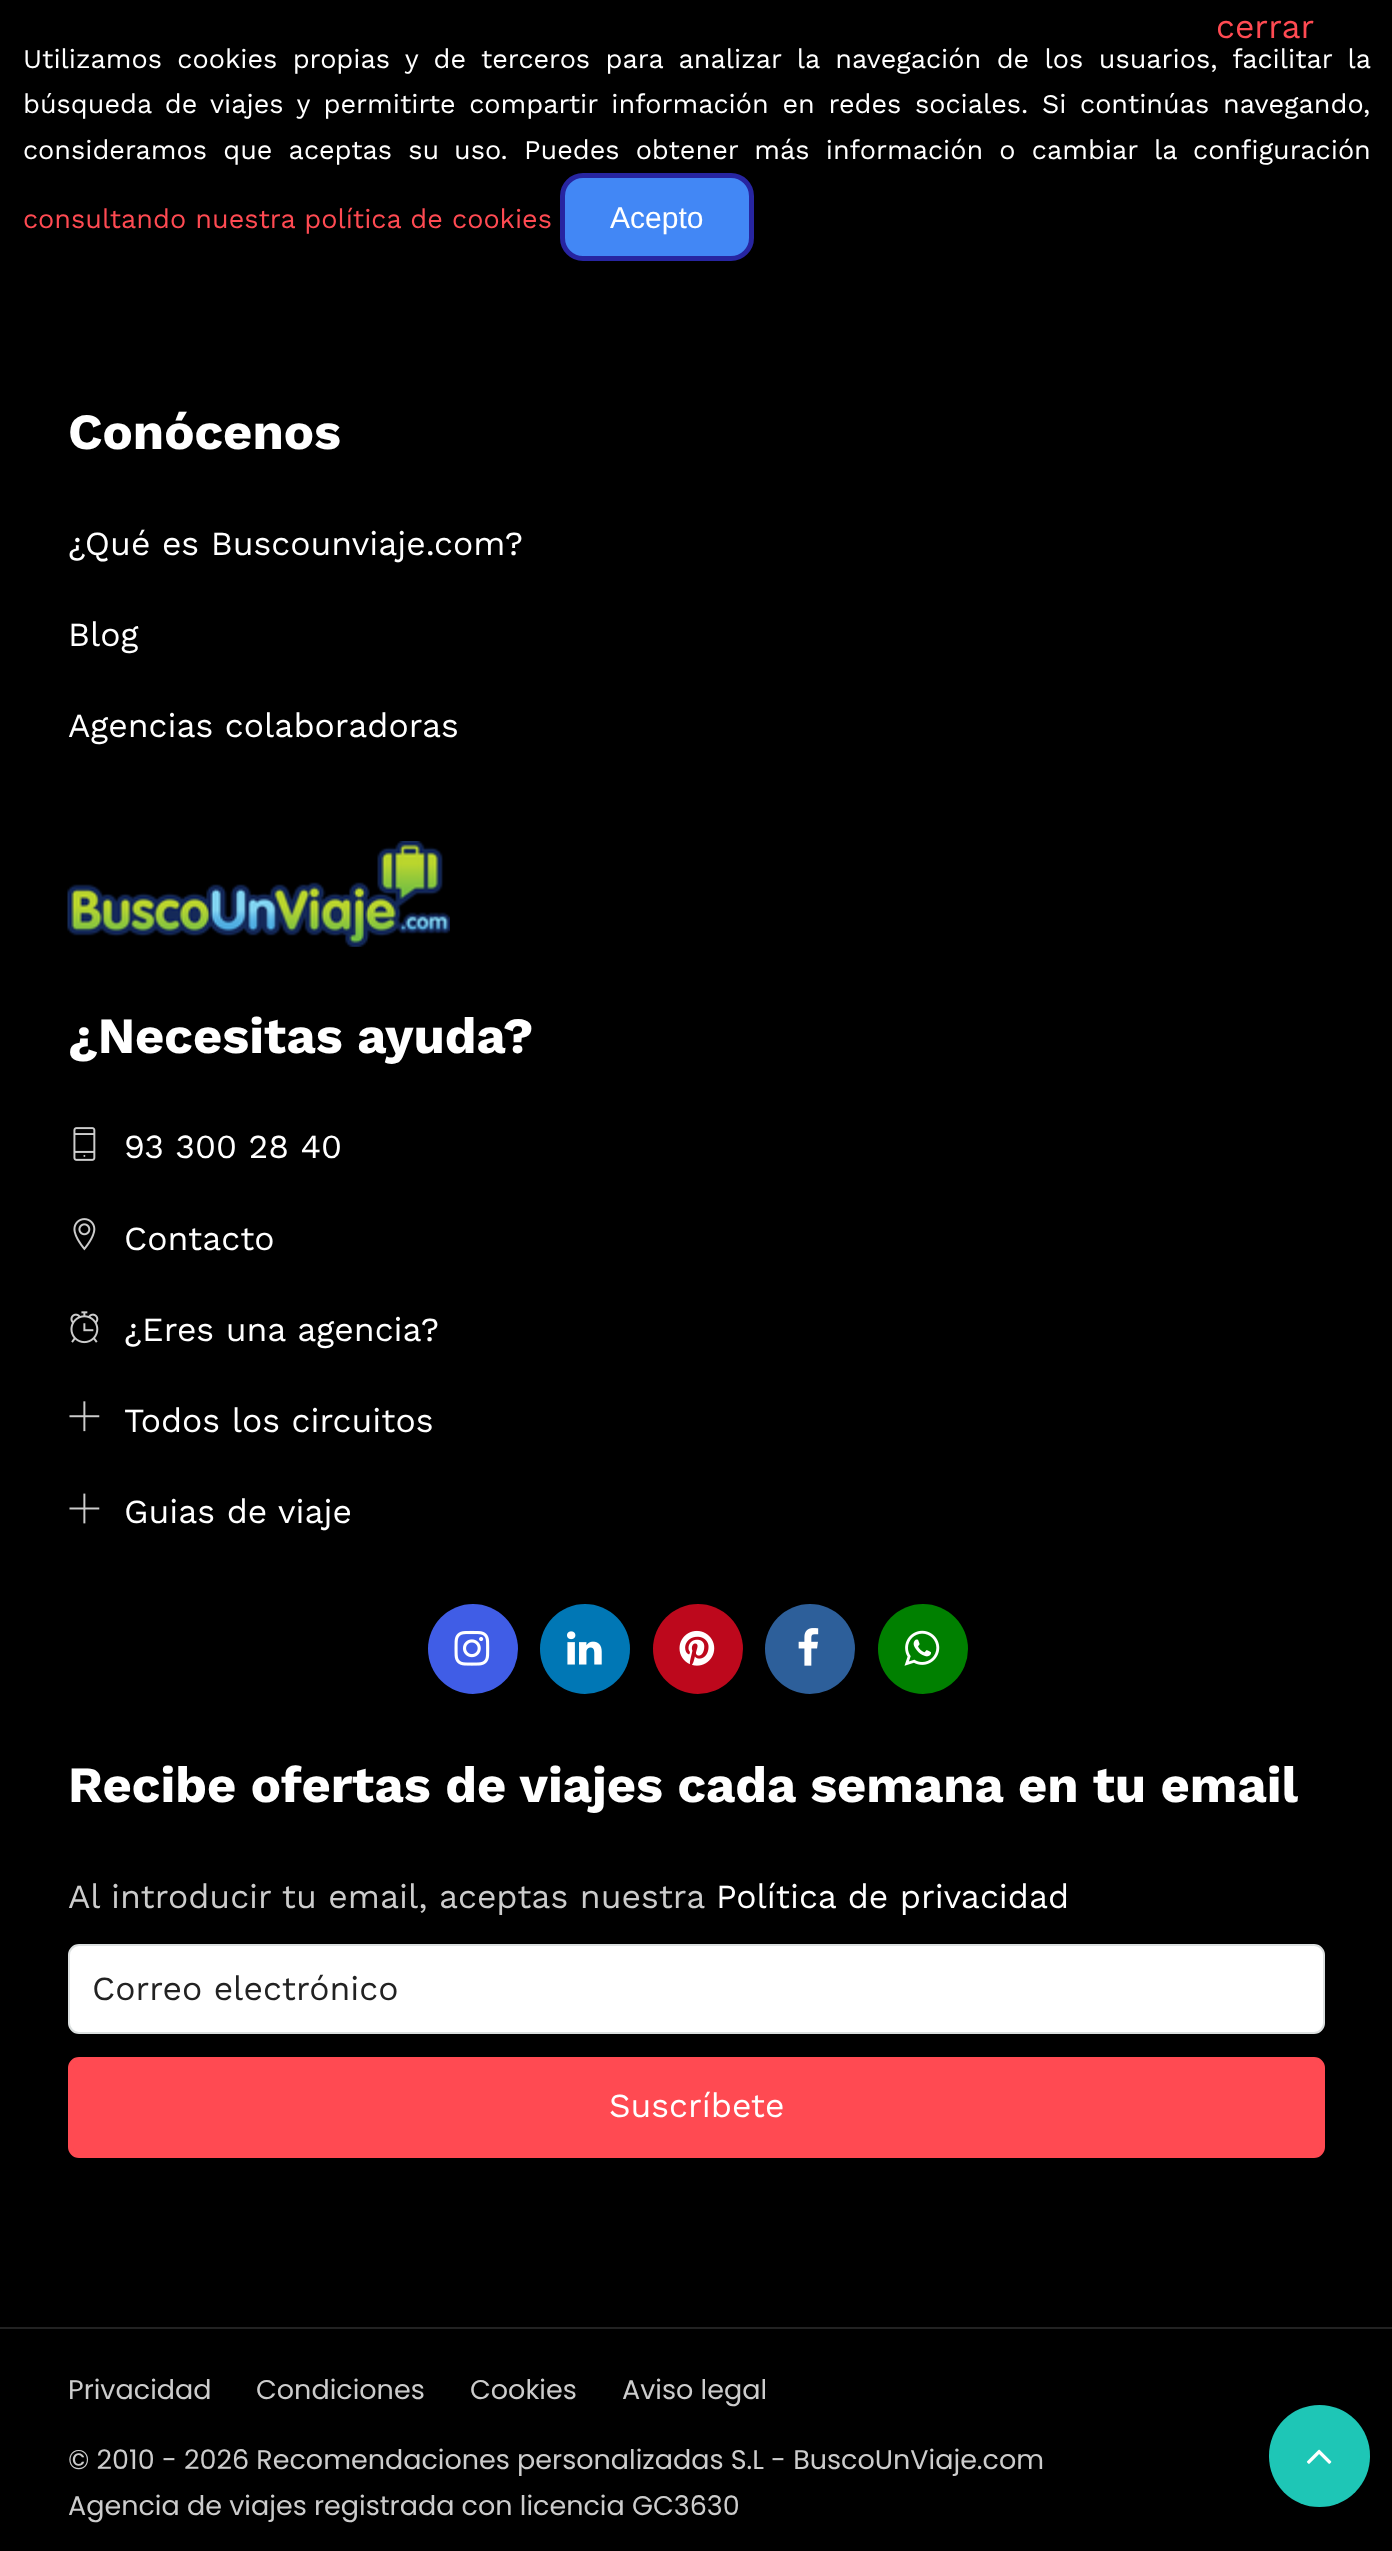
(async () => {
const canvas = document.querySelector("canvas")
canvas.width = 1392
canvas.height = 2551
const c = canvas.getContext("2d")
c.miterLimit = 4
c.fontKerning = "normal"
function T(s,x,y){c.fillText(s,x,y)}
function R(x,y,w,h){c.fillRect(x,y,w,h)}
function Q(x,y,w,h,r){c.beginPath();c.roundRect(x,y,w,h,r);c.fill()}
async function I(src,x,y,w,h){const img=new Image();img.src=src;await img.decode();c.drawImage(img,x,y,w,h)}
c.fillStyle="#000"
R(0,0,1392,2551)
c.font="33.75px Work Sans"
c.fillStyle="#ff4a52"
T("cerrar",1216,38)
c.wordSpacing="6.25px"
c.font="27px Work Sans"
c.fillStyle="#fff"
T("Utilizamos cookies propias y de terceros para analizar la navegación de los usuarios, facilitar la",23,68)
c.wordSpacing="4px"
T("búsqueda de",23,113)
c.wordSpacing="4.5px"
T("viajes y permitirte compartir información en redes sociales. Si continúas navegando,",210,113)
c.wordSpacing="7px"
T("consideramos que aceptas su",23,159)
c.wordSpacing="0px"
T("uso.",454,159)
c.wordSpacing="7px"
T("Puedes obtener más información o cambiar la configuración",524,159)
c.wordSpacing="0px"
c.fillStyle="#ff4a52"
T("consultando nuestra política de cookies",23,228)
c.fillStyle="#4287f5"
c.beginPath()
c.roundRect(562.5,175.5,189,83,20.5)
c.fill()
c.strokeStyle="#2725a1"
c.lineWidth=5
c.stroke()
c.font="30px Liberation Sans"
c.fillStyle="#fff"
T("Acepto",610,228)
c.font="bold 50.6px Work Sans"
T("Conócenos",68,449)
c.font="33.75px Work Sans"
T("¿Qué es Buscounviaje.com?",68,555)
T("Blog",68,646)
T("Agencias colaboradoras",68,737)
await I("1.png",67,841,383,106)
c.font="bold 50.6px Work Sans"
T("¿Necesitas ayuda?",68,1053)
await I("2.png",73,1127,23,34)
c.font="33.75px Work Sans"
T("93 300 28 40",124,1158)
await I("3.png",73,1218,23,33)
T("Contacto",124,1250)
await I("4.png",70,1311,29,33)
T("¿Eres una agencia?",124,1341)
await I("5.png",69,1401,31,31)
T("Todos los circuitos",124,1432)
await I("6.png",69,1493,31,31)
T("Guias de viaje",124,1523)
c.fillStyle="#405de6"
c.beginPath()
c.arc(473,1649,45,0,7)
c.fill()
await I("7.png",454,1630,36,36)
c.fillStyle="#0077b5"
c.beginPath()
c.arc(585,1649,45,0,7)
c.fill()
await I("8.png",567,1631,35,34)
c.fillStyle="#bd081c"
c.beginPath()
c.arc(698,1649,45,0,7)
c.fill()
await I("9.png",679,1630,36,36)
c.fillStyle="#2d5f9a"
c.beginPath()
c.arc(810,1649,45,0,7)
c.fill()
await I("10.png",798,1628,21,38)
c.fillStyle="#008000"
c.beginPath()
c.arc(923,1649,45,0,7)
c.fill()
await I("11.png",904,1630,36,36)
c.font="bold 50.6px Work Sans"
c.fillStyle="#fff"
T("Recibe ofertas de viajes cada semana en tu email",68,1802)
c.font="33.75px Work Sans"
c.fillStyle="#ccc"
T("Al introducir tu email, aceptas nuestra",68,1908)
c.fillStyle="#fff"
T("Política de privacidad",716,1908)
c.beginPath()
c.roundRect(69,1945,1255,88,10)
c.fill()
c.strokeStyle="#dce0e0"
c.lineWidth=2
c.stroke()
c.fillStyle="#222"
T("Correo electrónico",92,2000)
c.fillStyle="#ff4a52"
c.beginPath()
c.roundRect(70.5,2059.5,1252,96,8.5)
c.fill()
c.strokeStyle="#ff4a52"
c.lineWidth=5
c.stroke()
c.fillStyle="#fff"
T("Suscríbete",609,2117)
c.fillStyle="#222"
R(0,2327,1392,2)
c.font="27px Poppins"
c.fillStyle="#ccc"
T("Privacidad",68,2399)
T("Condiciones",256,2399)
T("Cookies",470,2399)
T("Aviso legal",622,2399)
T("© 2010 - 2026 Recomendaciones personalizadas S.L - BuscoUnViaje.com",68,2469)
T("Agencia de viajes registrada con licencia GC3630",68,2515)
c.fillStyle="#1ec6b6"
Q(1269,2405,101,102,50.5)
await I("12.png",1306,2449,26,15)
})()
